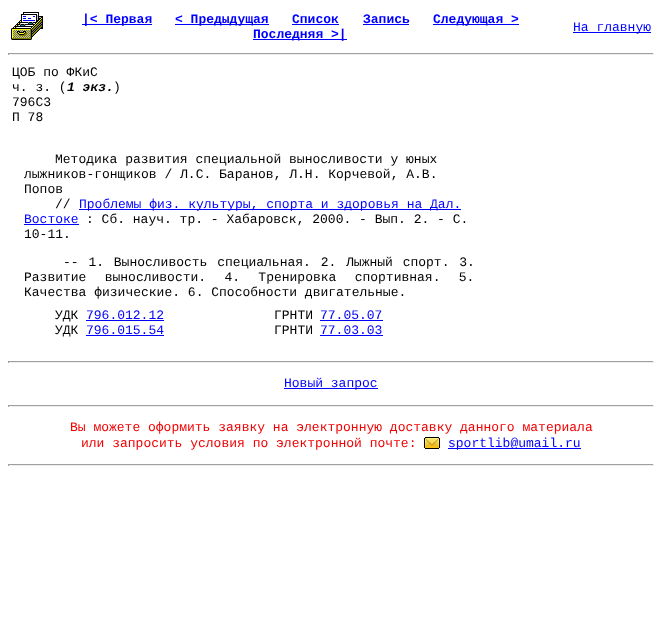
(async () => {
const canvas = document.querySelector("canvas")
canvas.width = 662
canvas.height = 617
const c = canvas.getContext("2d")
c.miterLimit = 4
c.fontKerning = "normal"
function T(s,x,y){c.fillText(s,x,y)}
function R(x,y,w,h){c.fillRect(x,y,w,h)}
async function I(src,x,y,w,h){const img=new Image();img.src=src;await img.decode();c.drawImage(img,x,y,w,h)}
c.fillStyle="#fff"
R(0,0,662,617)
await I("1.png",11,12,32,28)
c.fillStyle="#00f"
R(82,24,70,1)
c.font="bold 13px Liberation Mono"
T("|< Первая",82,23)
R(175,24,94,1)
T("< Предыдущая",175,23)
T("Список",292,23)
R(292,24,47,1)
T("Запись",363,23)
R(363,24,46,1)
R(433,24,86,1)
T("Следующая >",433,23)
R(253,39,94,1)
T("Последняя >|",253,38)
R(573,32,78,1)
c.font="13px Liberation Mono"
T("На главную",573,31)
c.fillStyle="#9f9f9f"
R(8,53,646,1)
c.fillStyle="#eee"
R(653,53,1,2)
R(8,54,646,1)
c.fillStyle="#9f9f9f"
R(8,53,1,2)
c.fillStyle="#000"
T("ЦОБ по ФКиС",12,76)
T("ч. з. (",12,91)
c.font="italic bold 13px Liberation Mono"
T("1 экз.",67,91)
c.font="13px Liberation Mono"
T(")",113,91)
T("796С3",12,106)
T("П 78",12,121)
T("Методика развития специальной выносливости у юных",55,163)
T("лыжников-гонщиков / Л.С. Баранов, Л.Н. Корчевой, А.В.",24,178)
T("Попов",24,193)
T("//",55,208)
c.fillStyle="#00f"
R(79,209,382,1)
T("Проблемы физ. культуры, спорта и здоровья на Дал.",79,208)
T("Востоке",24,223)
R(24,224,55,1)
c.fillStyle="#000"
T(": Сб. науч. тр. - Хабаровск, 2000. - Вып. 2. - С.",86,223)
T("10-11.",24,238)
c.wordSpacing="2px"
T("-- 1. Выносливость специальная. 2. Лыжный спорт. 3.",63,266)
c.wordSpacing="10.5px"
T("Развитие выносливости. 4. Тренировка спортивная. 5.",24,281)
c.wordSpacing="0px"
T("Качества физические. 6. Способности двигательные.",24,296)
T("УДК",55,319)
c.fillStyle="#00f"
T("796.012.12",86,319)
R(86,320,78,1)
c.fillStyle="#000"
T("ГРНТИ",274,319)
c.fillStyle="#00f"
T("77.05.07",320,319)
R(320,320,63,1)
c.fillStyle="#000"
T("УДК",55,334)
c.fillStyle="#00f"
T("796.015.54",86,334)
R(86,335,78,1)
c.fillStyle="#000"
T("ГРНТИ",274,334)
c.fillStyle="#00f"
T("77.03.03",320,334)
R(320,335,63,1)
c.fillStyle="#9f9f9f"
R(8,361,646,1)
c.fillStyle="#eee"
R(653,361,1,2)
R(8,362,646,1)
c.fillStyle="#9f9f9f"
R(8,361,1,2)
c.fillStyle="#00f"
R(284,388,94,1)
T("Новый запрос",284,387)
c.fillStyle="#9f9f9f"
R(8,405,646,1)
c.fillStyle="#eee"
R(653,405,1,2)
R(8,406,646,1)
c.fillStyle="#9f9f9f"
R(8,405,1,2)
c.fillStyle="#f00000"
T("Вы можете оформить заявку на электронную доставку данного материала",70,431)
T("или запросить условия по электронной почте:",81,447)
await I("2.png",424,437,16,12)
c.fillStyle="#00f"
R(448,448,133,1)
T("sportlib@umail.ru",448,447)
c.fillStyle="#9f9f9f"
R(8,464,646,1)
c.fillStyle="#eee"
R(653,464,1,2)
R(8,465,646,1)
c.fillStyle="#9f9f9f"
R(8,464,1,2)
})()
